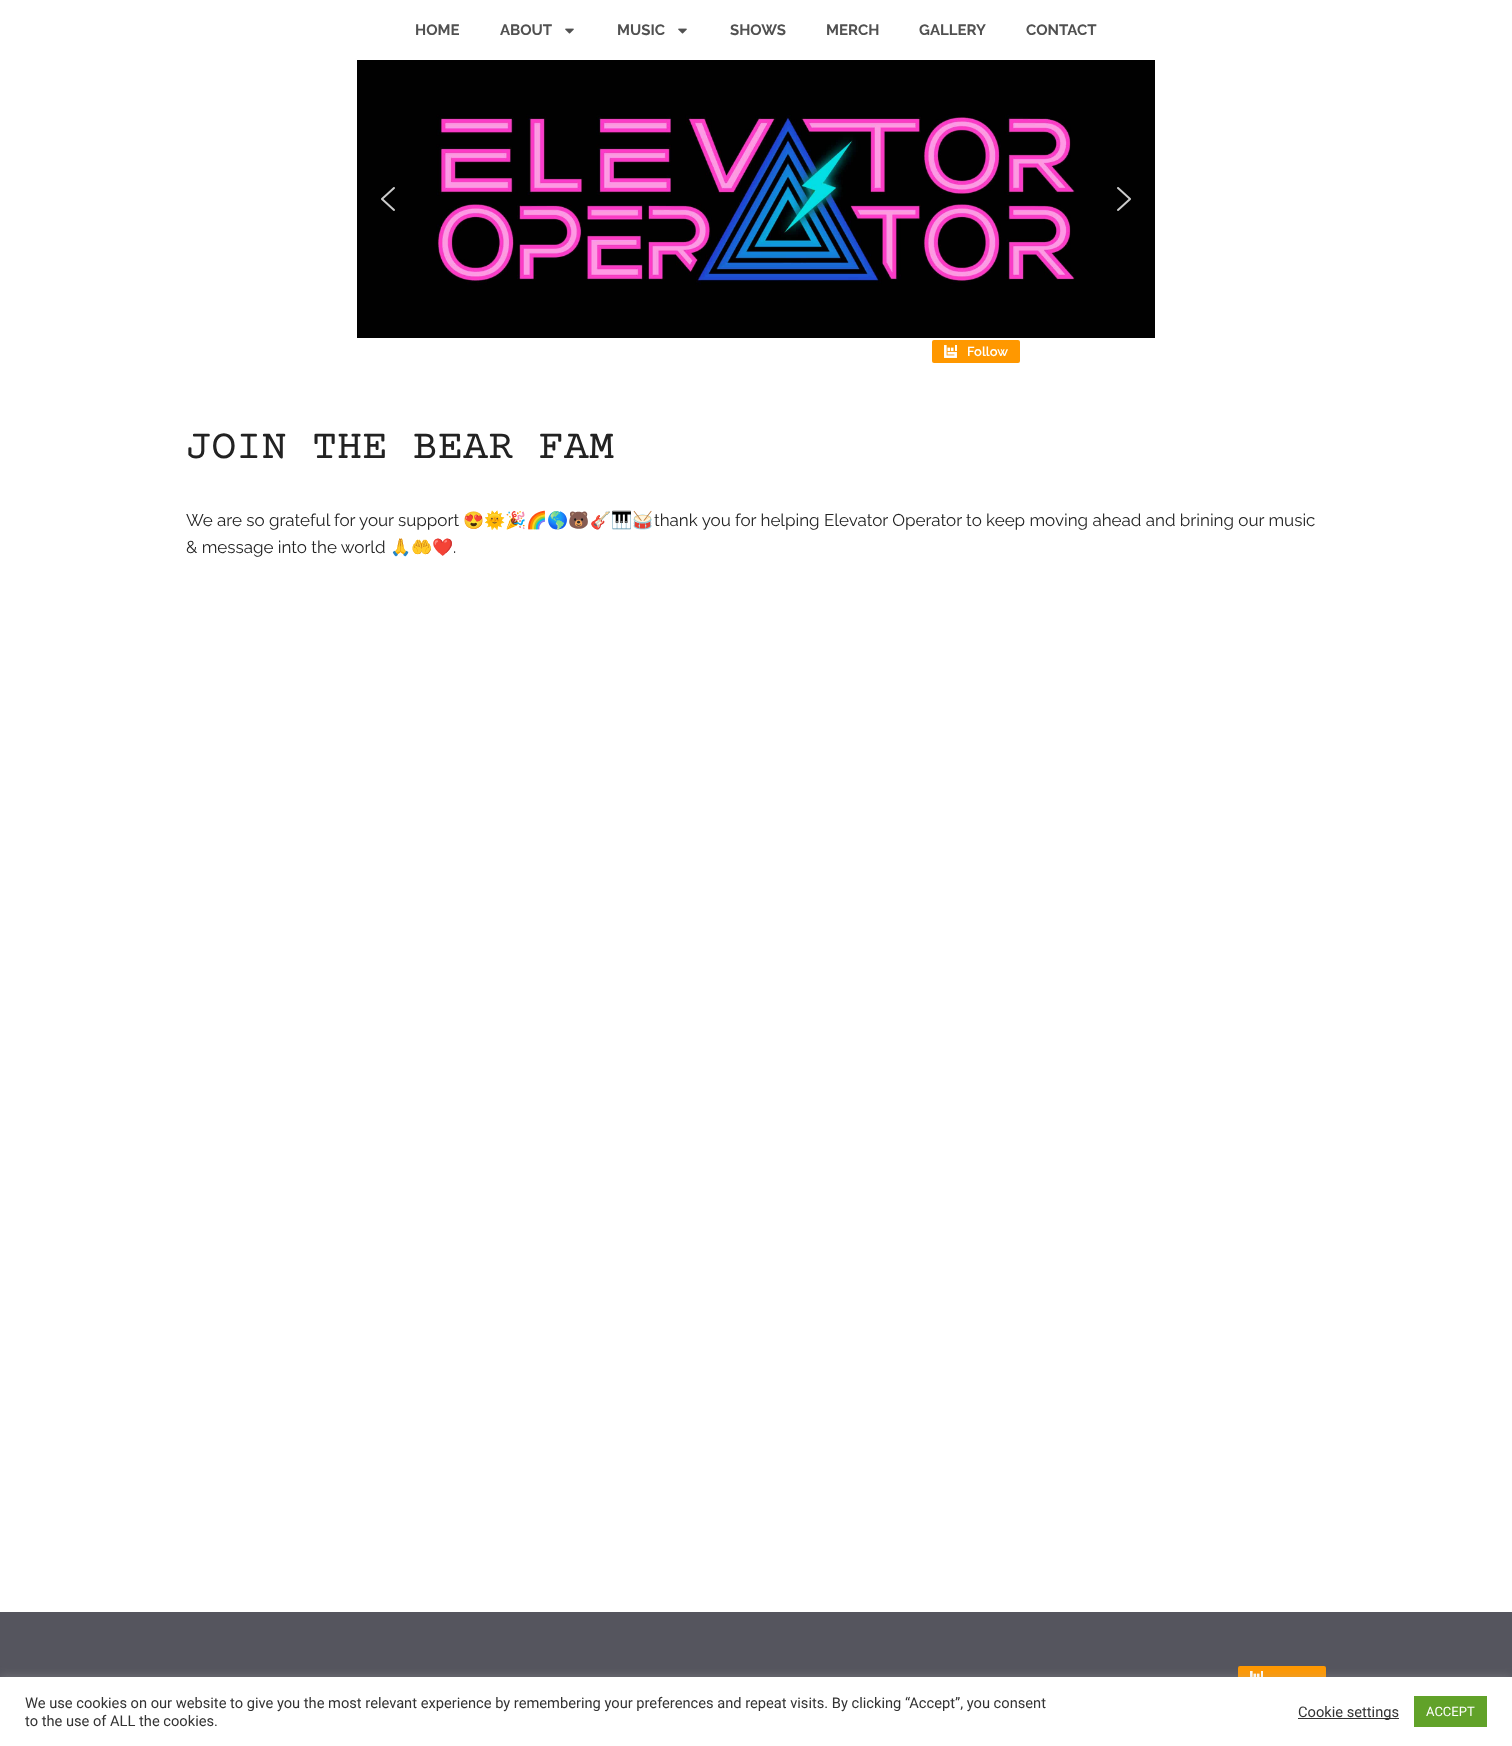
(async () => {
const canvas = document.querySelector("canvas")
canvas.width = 1512
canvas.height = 1746
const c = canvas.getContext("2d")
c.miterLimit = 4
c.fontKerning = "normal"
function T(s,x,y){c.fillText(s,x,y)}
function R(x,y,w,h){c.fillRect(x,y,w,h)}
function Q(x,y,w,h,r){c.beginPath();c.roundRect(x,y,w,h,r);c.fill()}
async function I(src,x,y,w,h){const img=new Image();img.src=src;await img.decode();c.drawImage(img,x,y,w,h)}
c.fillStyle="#fff"
R(0,0,1512,1746)
c.font="bold 15px Raleway"
c.fillStyle="#515151"
T("HOME",415,35)
T("ABOUT",500,35)
await I("1.png",565,28,9,6)
T("MUSIC",617,35)
await I("1.png",678,28,9,6)
T("SHOWS",730,35)
T("MERCH",826,35)
T("GALLERY",919,35)
T("CONTACT",1026,35)
await I("2.png",357,60,798,278)
await I("3.png",381,187,14,24)
await I("4.png",1117,187,14,24)
c.fillStyle="#ff9800"
Q(932,340,88,23,2)
await I("5.png",944,345,13,13)
c.font="600 13px Raleway"
c.fillStyle="#fff"
T("Follow",967,356)
c.font="42px Courier Prime"
c.fillStyle="#222"
T("JOIN THE BEAR FAM",186,458)
c.font="17px Raleway"
T("We are so grateful for your support",186,526)
c.font="17px Noto Color Emoji"
T("😍🌞🎉🌈🌎🐻🎸🎹🥁",463,526)
c.font="17px Raleway"
T("thank you for helping Elevator Operator to keep moving ahead and brining our music",654,526)
T("& message into the world",186,553)
c.font="17px Noto Color Emoji"
T("🙏🤲❤️",390,553)
c.font="17px Raleway"
T(".",453,553)
c.fillStyle="#55555e"
R(0,1612,1512,65)
c.fillStyle="#ff9800"
Q(1238,1666,88,23,2)
await I("6.png",1250,1671,13,6)
c.fillStyle="#acabab4d"
c.filter="blur(5px)"
c.beginPath()
c.rect(0,1676,1512,69)
c.fill()
c.filter="none"
c.fillStyle="#fff"
R(0,1677,1512,69)
c.font="14.67px Roboto"
c.fillStyle="#333"
T("We use cookies on our website to give you the most relevant experience by remembering your preferences and repeat visits. By clicking “Accept”, you consent",25,1708)
T("to the use of ALL the cookies.",25,1726)
R(1298,1718,101,1)
T("Cookie settings",1298,1717)
c.fillStyle="#61a229"
R(1414,1696,73,31)
c.font="13px Roboto"
c.fillStyle="#fff"
T("ACCEPT",1426,1716)
})()
